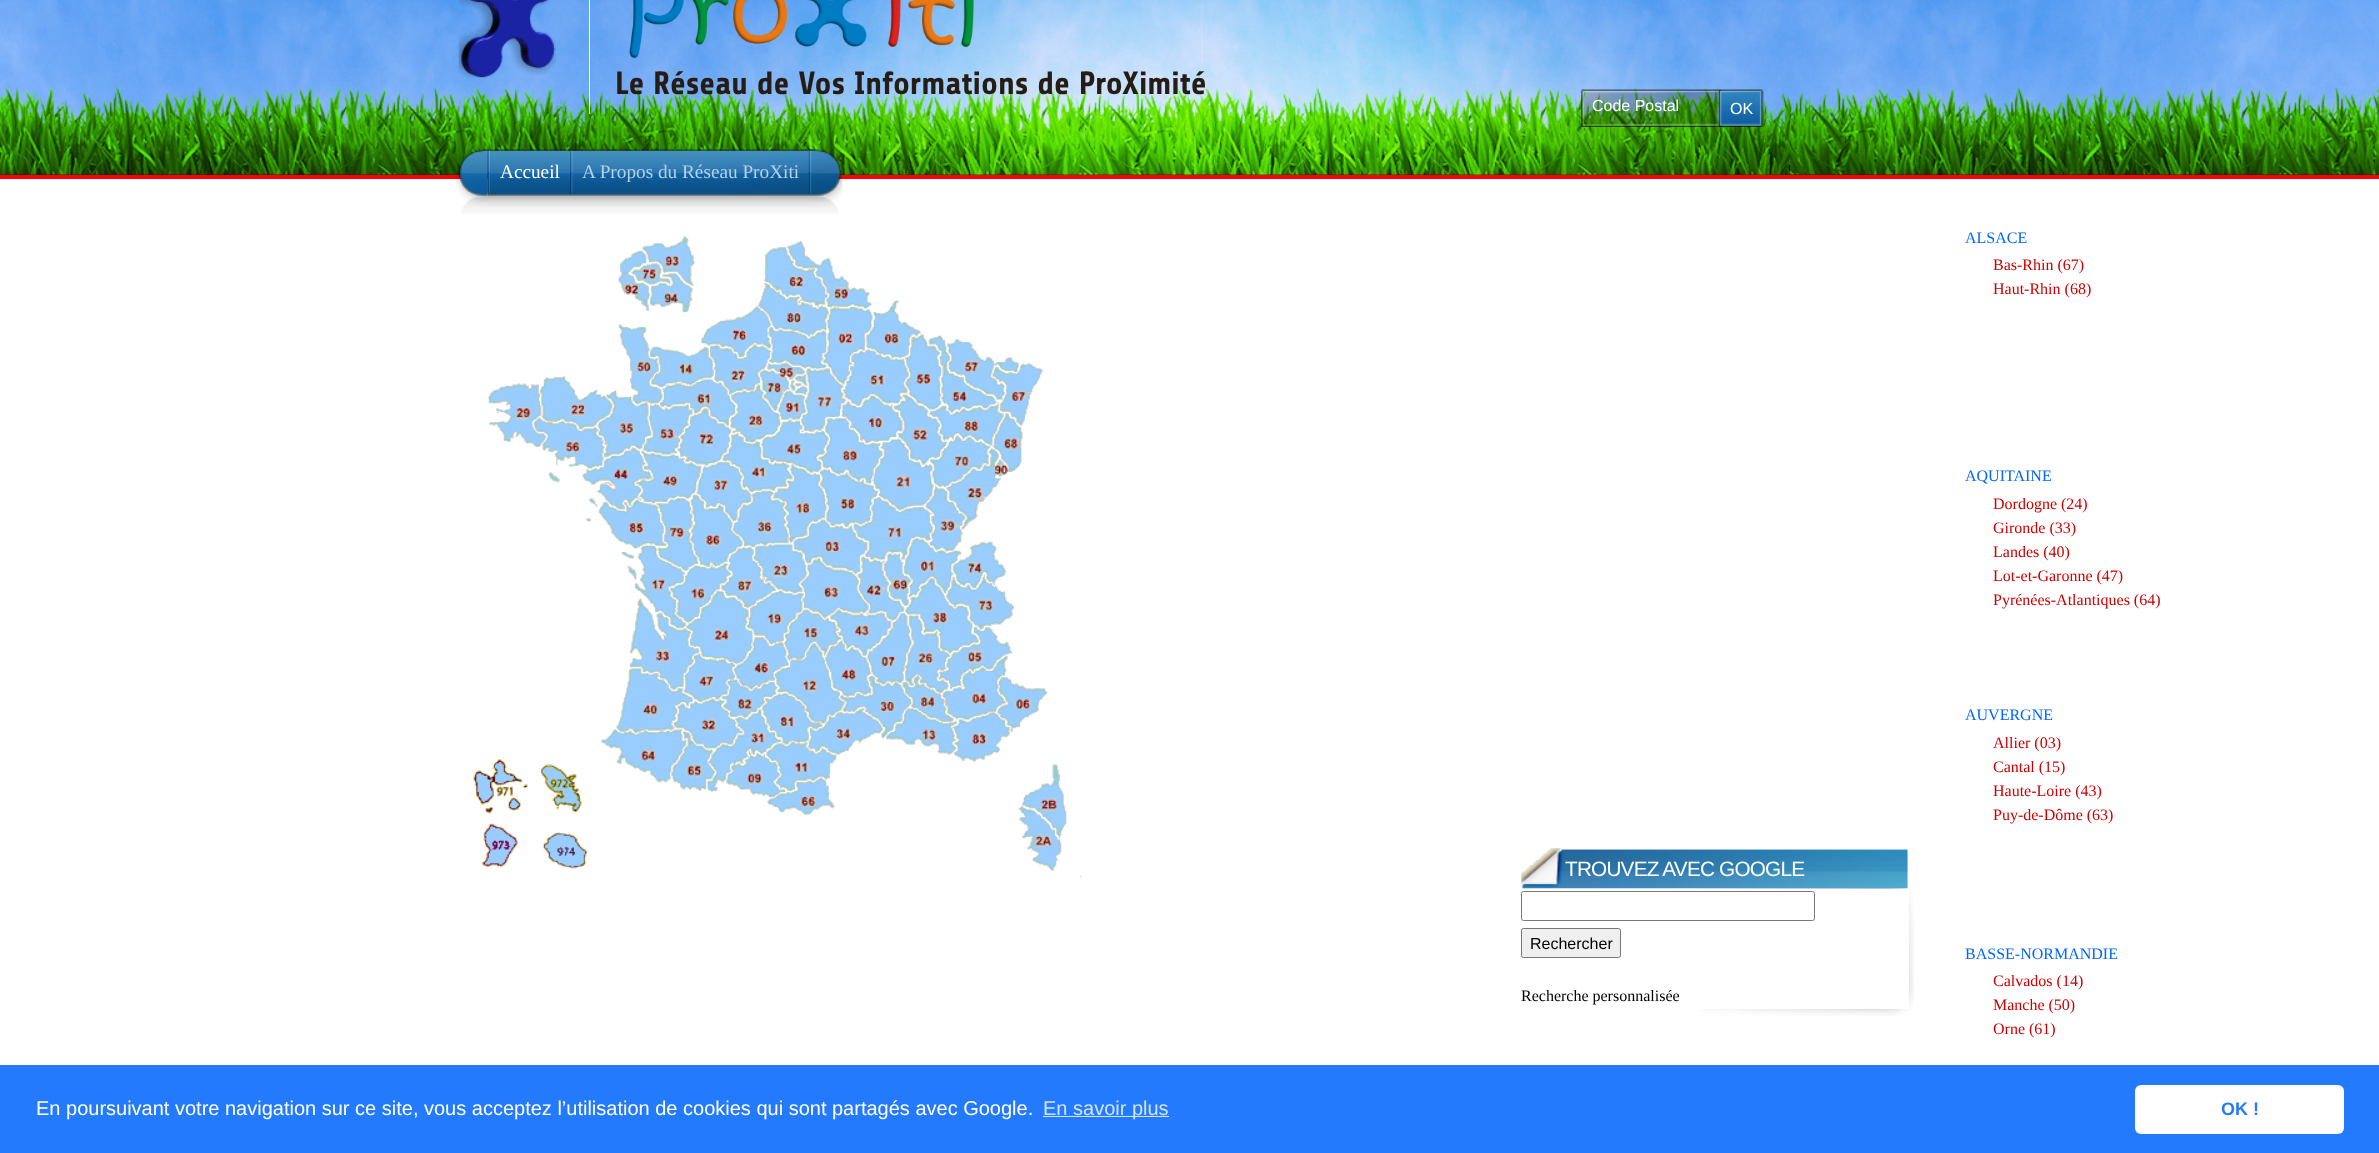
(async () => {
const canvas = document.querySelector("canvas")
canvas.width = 2379
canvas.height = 1153
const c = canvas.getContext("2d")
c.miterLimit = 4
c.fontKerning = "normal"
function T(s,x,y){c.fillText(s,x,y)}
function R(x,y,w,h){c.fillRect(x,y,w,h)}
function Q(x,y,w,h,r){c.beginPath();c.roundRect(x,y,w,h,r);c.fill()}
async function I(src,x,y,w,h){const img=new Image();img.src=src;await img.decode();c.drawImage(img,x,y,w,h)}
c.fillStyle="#261c13"
R(0,0,2379,1153)
await I("1.png",0,0,2379,175)
await I("2.png",590,0,1200,175)
await I("3.png",458,0,98,78)
c.fillStyle="#fff"
R(589,0,1,114)
await I("4.png",629,0,345,59)
c.font="bold 32px Share"
c.fillStyle="#261c13"
T("Le Réseau de Vos Informations de ProXimité",615,94)
await I("5.png",1581,89,138,38)
await I("6.png",1718,89,46,38)
c.font="16px Liberation Sans"
c.fillStyle="#fff"
T("Code Postal",1592,111)
T("OK",1730,114)
R(0,179,2379,886)
c.fillStyle="#f00"
R(0,175,2379,4)
await I("7.png",456,149,32,65)
await I("8.png",487,149,356,65)
await I("9.png",808,150,4,44)
await I("10.png",487,150,3,44)
c.font="19.25px Liberation Serif"
c.fillStyle="#fff"
T("Accueil",500,178)
await I("11.png",570,150,3,44)
c.fillStyle="#b5d1e6"
T("A Propos du Réseau ProXiti",582,178)
await I("12.png",473,235,609,642)
await I("13.png",1699,886,215,130)
await I("14.png",1521,848,44,41)
await I("15.png",1565,849,344,40)
c.letterSpacing="-0.8px"
c.font="20.75px Liberation Sans"
c.fillStyle="#fff"
T("TROUVEZ AVEC GOOGLE",1565,876)
R(1699,889,210,120)
c.beginPath()
c.roundRect(1521.5,891.5,293,29,2)
c.strokeStyle="#767676"
c.stroke()
c.fillStyle="#efefef"
c.beginPath()
c.roundRect(1521.5,928.5,99,29,2)
c.fill()
c.stroke()
c.letterSpacing="0px"
c.font="16px Liberation Sans"
c.fillStyle="#000"
T("Rechercher",1530,949)
c.font="16px Liberation Serif"
T("Recherche personnalisée",1521,1001)
c.fillStyle="#06f"
T("ALSACE",1965,243)
c.fillStyle="#c00"
T("Bas-Rhin (67)",1993,270)
T("Haut-Rhin (68)",1993,294)
c.fillStyle="#06f"
T("AQUITAINE",1965,481)
c.fillStyle="#c00"
T("Dordogne (24)",1993,509)
T("Gironde (33)",1993,533)
T("Landes (40)",1993,557)
T("Lot-et-Garonne (47)",1993,581)
T("Pyrénées-Atlantiques (64)",1993,605)
c.fillStyle="#06f"
T("AUVERGNE",1965,720)
c.fillStyle="#c00"
T("Allier (03)",1993,748)
T("Cantal (15)",1993,772)
T("Haute-Loire (43)",1993,796)
T("Puy-de-Dôme (63)",1993,820)
c.fillStyle="#06f"
T("BASSE-NORMANDIE",1965,959)
c.fillStyle="#c00"
T("Calvados (14)",1993,986)
T("Manche (50)",1993,1010)
T("Orne (61)",1993,1034)
c.fillStyle="#237afc"
R(0,1065,2379,88)
c.font="20px Liberation Sans"
c.fillStyle="#fff"
T("En poursuivant votre navigation sur ce site, vous acceptez l’utilisation de cookies qui sont partagés avec Google.",36,1115)
c.fillStyle="#d3e4fe"
R(1043,1116,126,1)
T("En savoir plus",1043,1115)
c.fillStyle="#fff"
Q(2135,1085,209,49,6)
c.font="bold 18px Liberation Sans"
c.fillStyle="#237afc"
T("OK !",2221,1115)
})()
